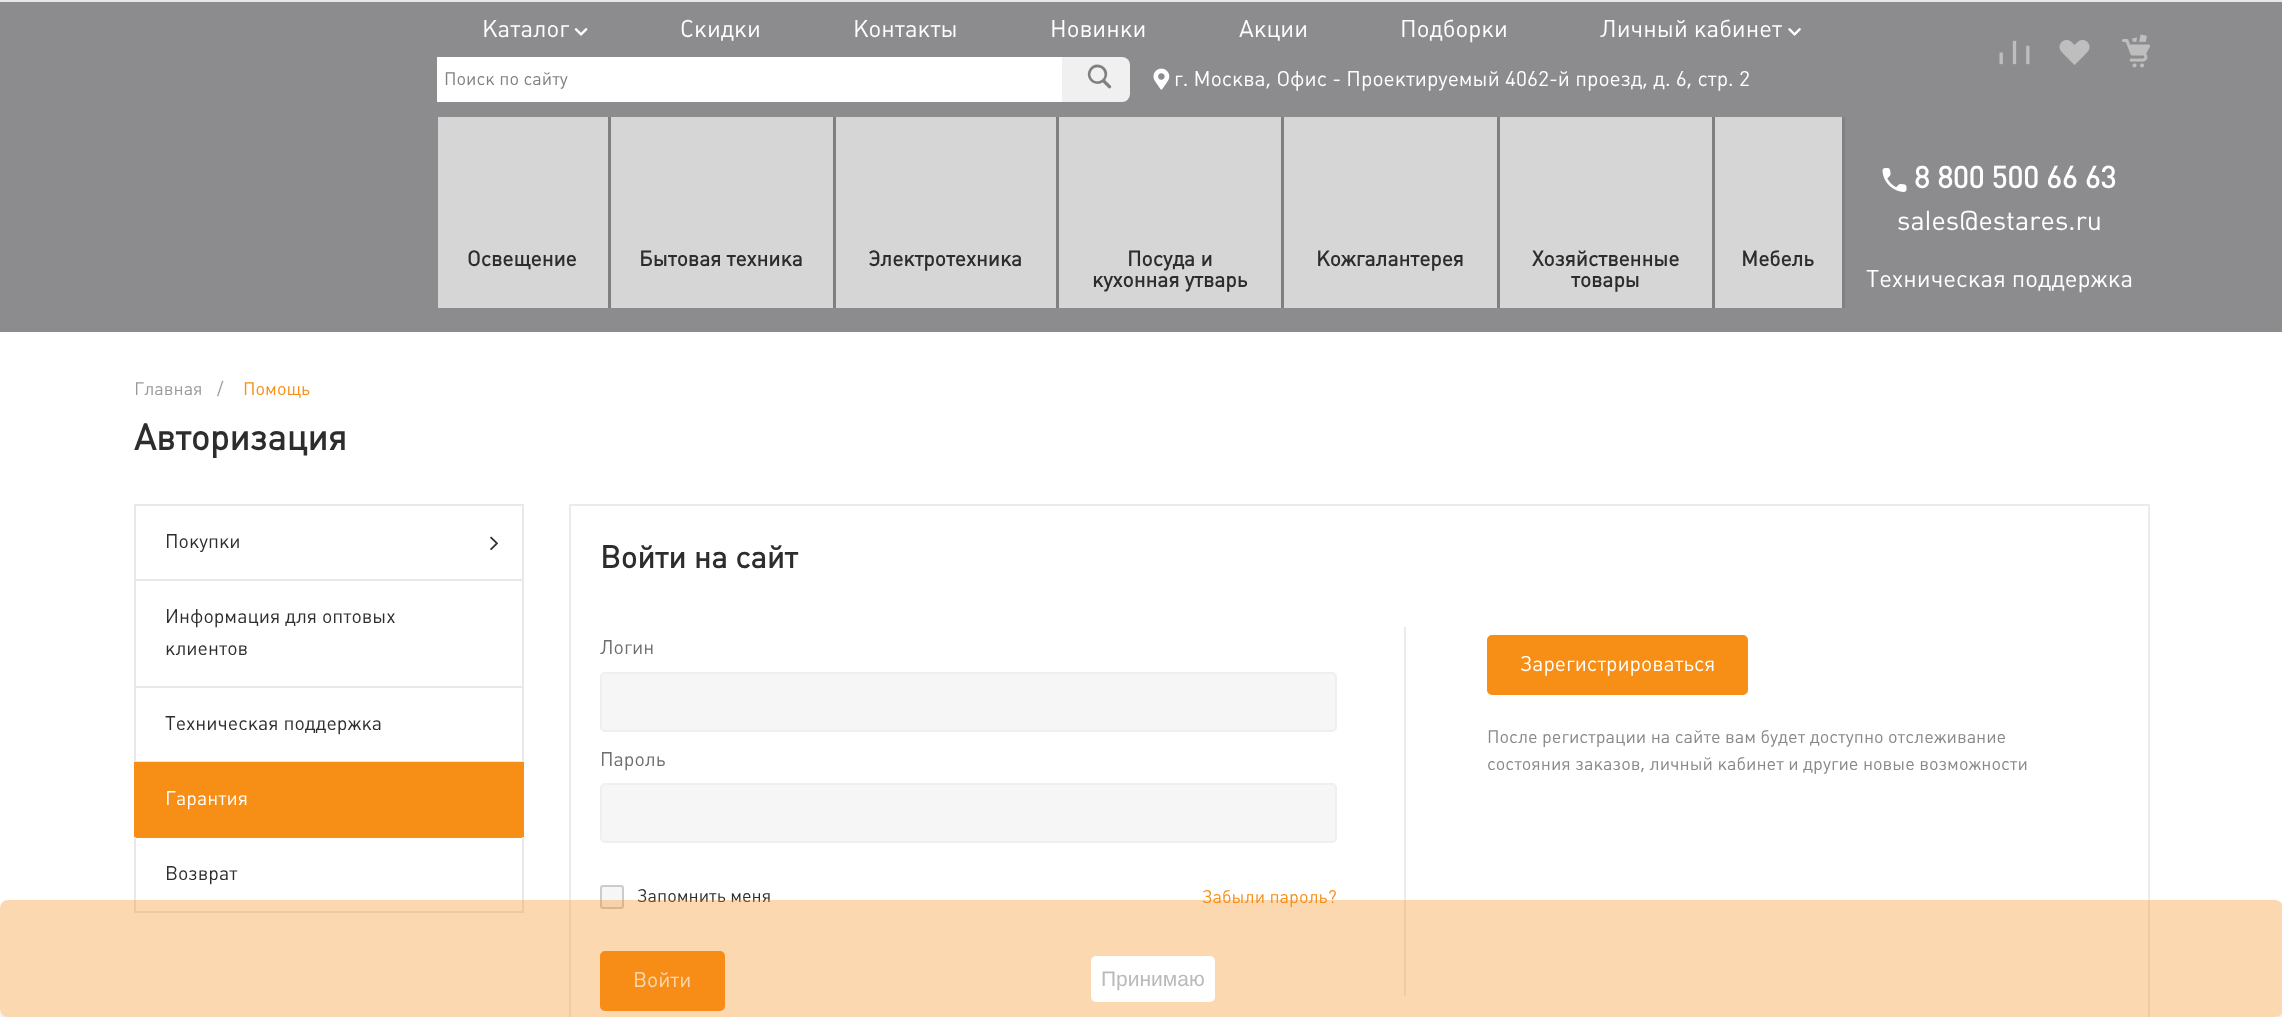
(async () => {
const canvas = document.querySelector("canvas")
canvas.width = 2282
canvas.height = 1017
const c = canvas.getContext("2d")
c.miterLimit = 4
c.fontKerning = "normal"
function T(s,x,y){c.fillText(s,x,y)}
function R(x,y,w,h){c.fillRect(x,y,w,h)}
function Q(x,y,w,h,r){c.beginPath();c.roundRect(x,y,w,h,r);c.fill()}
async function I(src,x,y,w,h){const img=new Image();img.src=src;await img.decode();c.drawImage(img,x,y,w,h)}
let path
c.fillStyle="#fff"
R(0,0,2282,1017)
c.fillStyle="#8c8c8f"
R(0,2,2282,330)
c.fillStyle="#e8e8e8"
R(0,0,2282,2)
c.font="24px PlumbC"
c.fillStyle="#fff"
T("Каталог",482,37)
await I("1.png",574,28,14,8)
T("Скидки",680,37)
T("Контакты",853,37)
T("Новинки",1050,37)
T("Акции",1239,37)
T("Подборки",1400,37)
T("Личный кабинет",1600,37)
await I("2.png",1788,28,13,8)
await I("3.png",1999,40,31,25)
await I("4.png",2059,40,31,25)
await I("5.png",2122,34,28,34)
c.fillStyle="#f0f0f0"
Q(440,57,690,45,8)
c.fillStyle="#fff"
R(437,57,625,45)
c.font="18px PlumbC"
c.fillStyle="#808080"
T("Поиск по сайту",444,85)
await I("6.png",1087,64,25,25)
await I("7.png",1153,68,17,22)
c.font="21px PlumbC"
c.fillStyle="#fff"
T("г. Москва, Офис - Проектируемый 4062-й проезд, д. 6, стр. 2",1174,86)
c.fillStyle="#d6d6d6"
R(438,117,170,191)
c.fillStyle="#808080"
R(608,117,3,191)
c.font="bold 21px PlumbC"
c.fillStyle="#2d2d2d"
T("Освещение",467,266)
c.fillStyle="#d6d6d6"
R(611,117,222,191)
c.fillStyle="#808080"
R(833,117,3,191)
c.fillStyle="#2d2d2d"
T("Бытовая техника",639,266)
c.fillStyle="#d6d6d6"
R(836,117,220,191)
c.fillStyle="#808080"
R(1056,117,3,191)
c.fillStyle="#2d2d2d"
T("Электротехника",868,266)
c.fillStyle="#d6d6d6"
R(1059,117,222,191)
c.fillStyle="#808080"
R(1281,117,3,191)
c.fillStyle="#2d2d2d"
T("Посуда и",1127,266)
T("кухонная утварь",1092,287)
c.fillStyle="#d6d6d6"
R(1284,117,213,191)
c.fillStyle="#808080"
R(1497,117,3,191)
c.fillStyle="#2d2d2d"
T("Кожгалантерея",1316,266)
c.fillStyle="#d6d6d6"
R(1500,117,212,191)
c.fillStyle="#808080"
R(1712,117,3,191)
c.fillStyle="#2d2d2d"
T("Хозяйственные",1532,266)
T("товары",1571,287)
c.fillStyle="#d6d6d6"
R(1715,117,127,191)
c.fillStyle="#808080"
R(1842,117,3,191)
c.fillStyle="#2d2d2d"
T("Мебель",1741,266)
await I("8.png",1882,168,25,24)
c.font="bold 30px PlumbC"
c.fillStyle="#fff"
T("8 800 500 66 63",1914,188)
c.font="27px PlumbC"
T("sales@estares.ru",1897,230)
c.font="24px PlumbC"
T("Техническая поддержка",1866,287)
c.font="18px PlumbC"
c.fillStyle="#9a9a9a"
T("Главная",134,395)
T("/",217,395)
c.fillStyle="#f78e16"
T("Помощь",243,395)
c.font="bold 36px PlumbC"
c.fillStyle="#2d2d2d"
T("Авторизация",134,450)
c.strokeStyle="#e8e8e8"
c.lineWidth=2
c.strokeRect(135,505,388,75)
c.font="19.5px PlumbC"
T("Покупки",165,548)
await I("9.png",490,536,8,15)
c.fillStyle="#e8e8e8"
R(522,581,2,106)
R(134,686,390,2)
R(134,581,2,106)
c.fillStyle="#2d2d2d"
T("Информация для оптовых",165,623)
T("клиентов",165,655)
c.fillStyle="#e8e8e8"
R(522,687,2,75)
R(134,761,390,1)
R(134,687,2,75)
c.fillStyle="#2d2d2d"
T("Техническая поддержка",165,730)
c.fillStyle="#f78e16"
R(134,762,390,76)
c.fillStyle="#fff"
T("Гарантия",165,805)
c.fillStyle="#e8e8e8"
R(522,837,2,75)
R(134,911,390,2)
R(134,837,2,75)
c.fillStyle="#2d2d2d"
T("Возврат",165,880)
c.strokeStyle="#ebebeb"
c.strokeRect(570,505,1579,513)
c.font="bold 31px PlumbC"
T("Войти на сайт",600,568)
c.font="19.5px PlumbC"
c.fillStyle="#6e6e6e"
T("Логин",600,654)
c.fillStyle="#f6f6f6"
c.beginPath()
c.roundRect(601,673,735,58,4)
c.fill()
c.strokeStyle="#efefef"
c.stroke()
c.fillStyle="#6e6e6e"
T("Пароль",600,766)
c.fillStyle="#f6f6f6"
c.beginPath()
c.roundRect(601,784,735,58,4)
c.fill()
c.stroke()
c.beginPath()
c.roundRect(601,886,22,22,2)
c.fill()
c.strokeStyle="#ccc"
c.stroke()
c.font="18px PlumbC"
c.fillStyle="#2d2d2d"
T("Запомнить меня",637,902)
c.fillStyle="#f78e16"
T("Забыли пароль?",1202,903)
c.beginPath()
c.roundRect(601.5,952.5,122,57,3.5)
c.fill()
c.strokeStyle="#f78e16"
c.lineWidth=3
c.stroke()
c.font="21px PlumbC"
c.fillStyle="#fff"
T("Войти",633,987)
c.fillStyle="#ebebeb"
R(1404,627,2,369)
c.fillStyle="#f78e16"
c.beginPath()
c.roundRect(1488.5,636.5,258,57,3.5)
c.fill()
c.stroke()
c.fillStyle="#fff"
T("Зарегистрироваться",1520,671)
c.font="18px PlumbC"
c.fillStyle="#888"
T("После регистрации на сайте вам будет доступно отслеживание",1487,743)
T("состояния заказов, личный кабинет и другие новые возможности",1487,770)
c.save()
path = new Path2D("M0 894h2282v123h-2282zm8 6h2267c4.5 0 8 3.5 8 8v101c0 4.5-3.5 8-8 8h-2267c-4.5 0-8-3.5-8-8v-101c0-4.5 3.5-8 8-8z")
c.clip(path,"evenodd")
c.fillStyle="#a9a9a940"
c.filter="blur(4.5px)"
c.beginPath()
c.roundRect(0,909,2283,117,8)
c.fill()
c.filter="none"
c.restore()
c.fillStyle="#f78e1657"
Q(0,900,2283,117,8)
c.fillStyle="#fff"
Q(1091,956,124,46,5)
c.font="21px Liberation Sans"
c.fillStyle="#bababa"
T("Принимаю",1101,986)
})()
